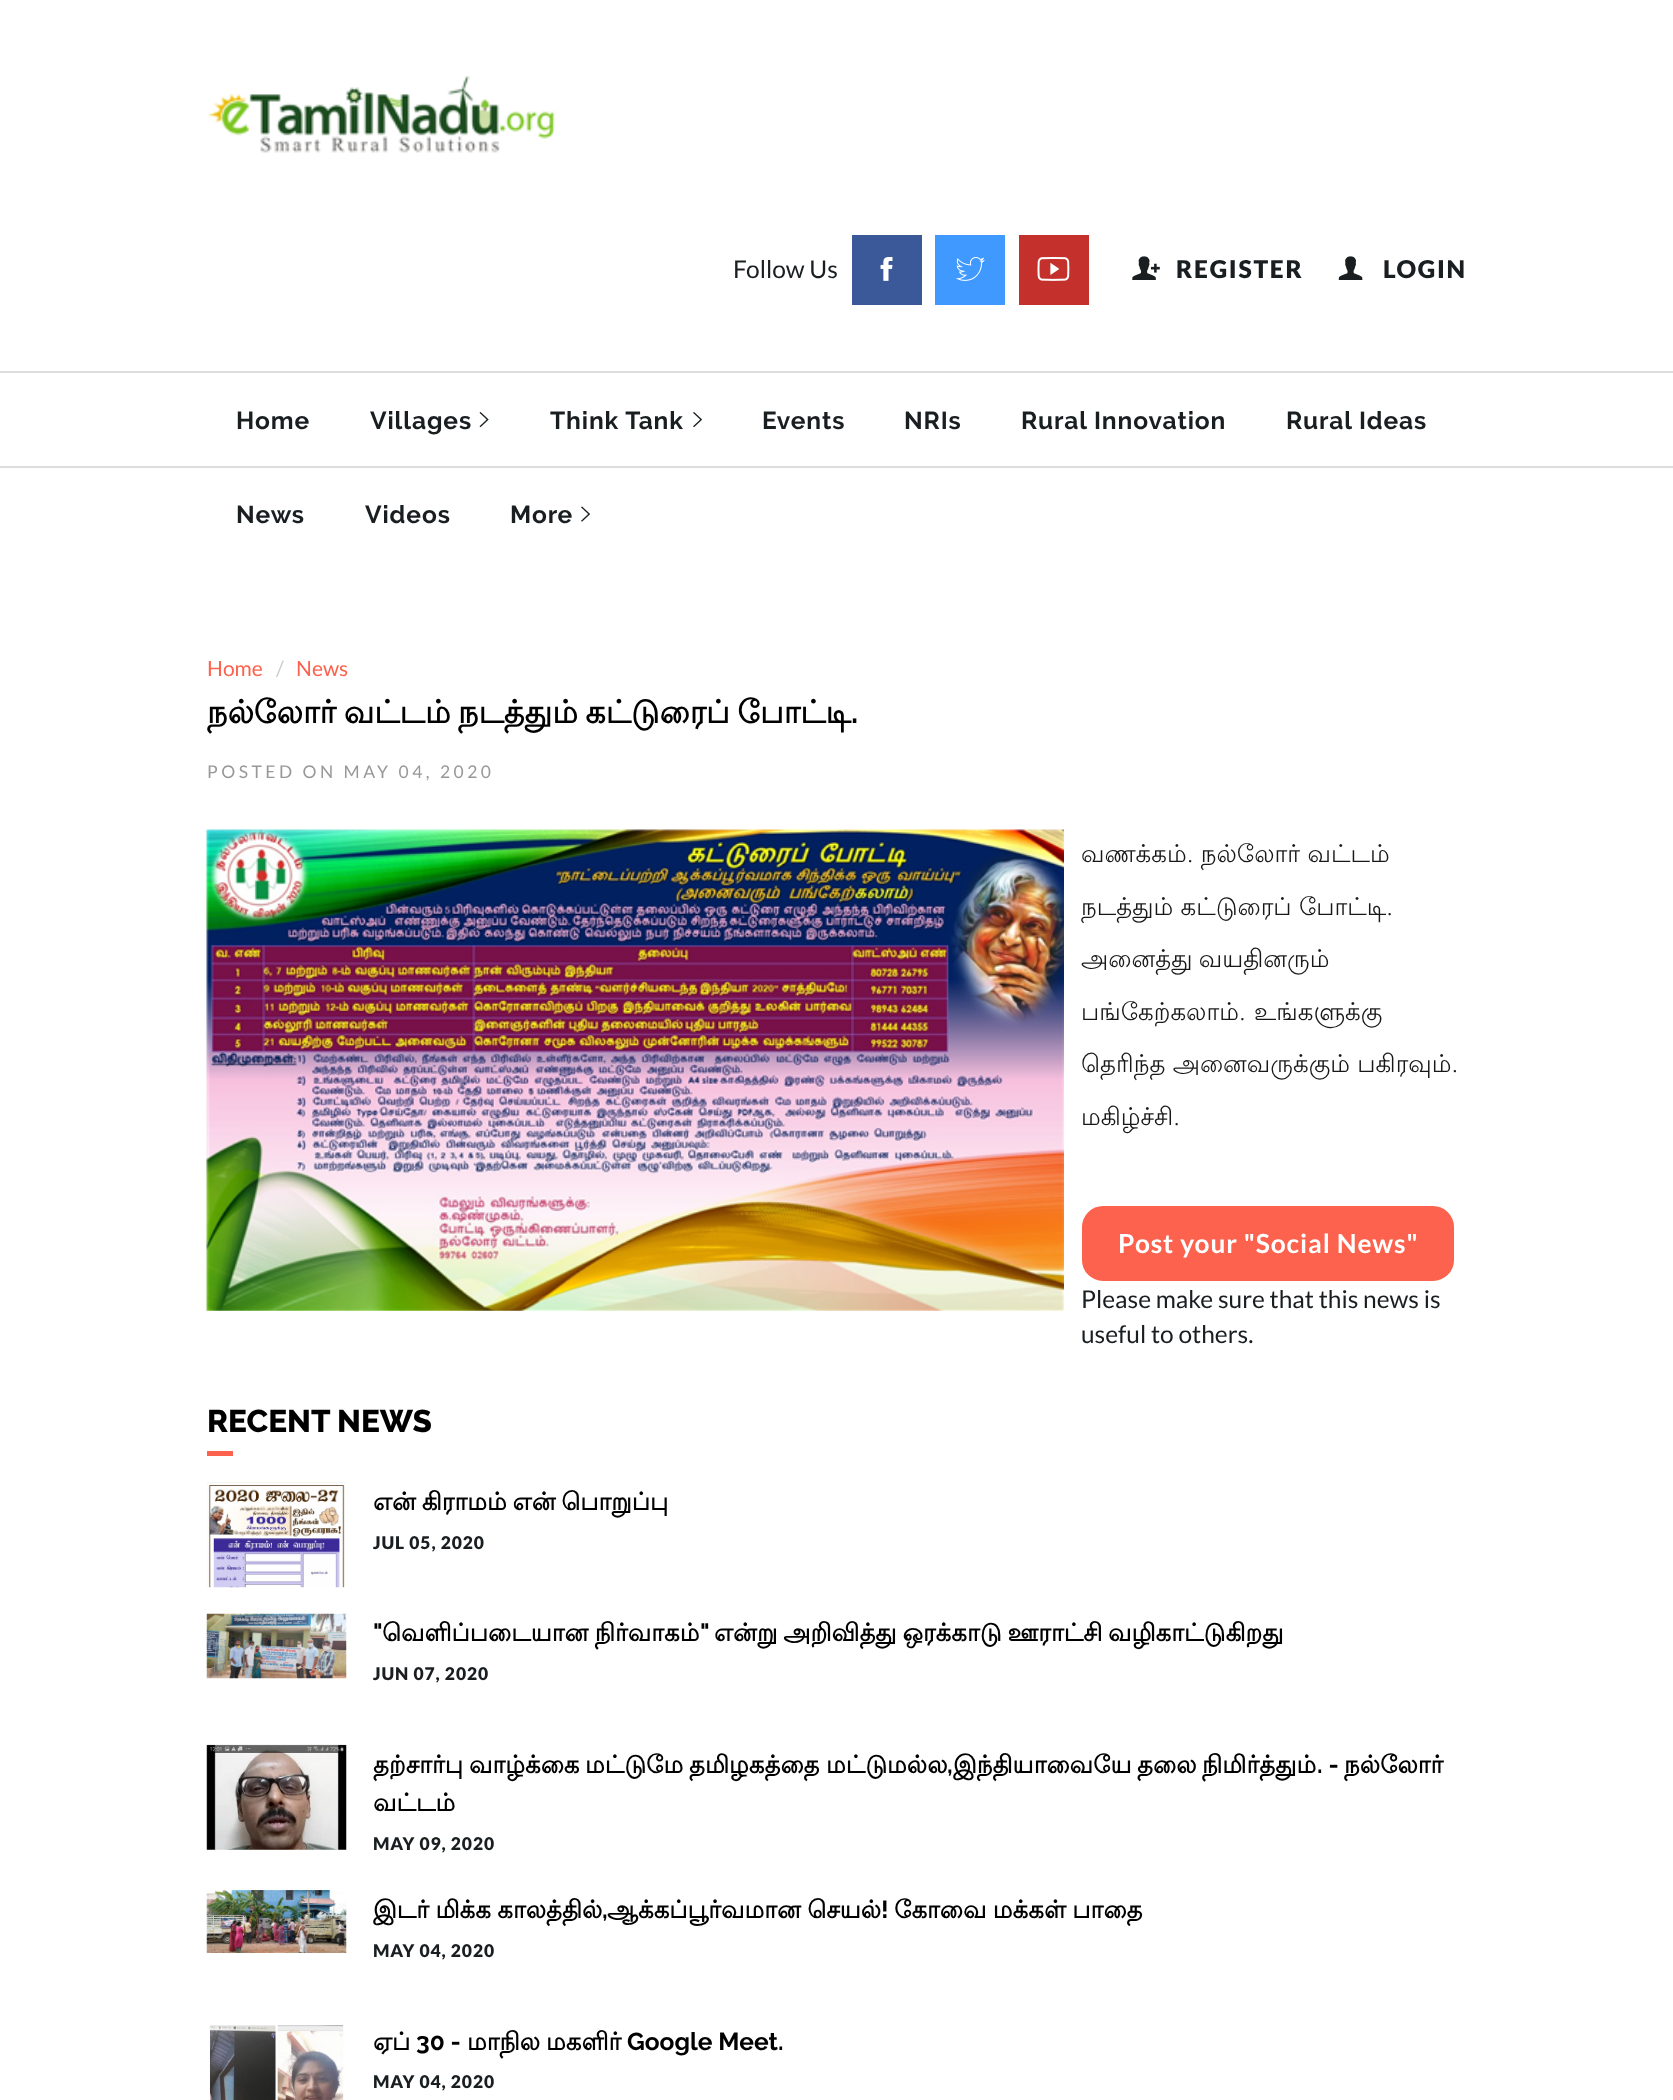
(async () => {
const canvas = document.querySelector("canvas")
canvas.width = 1673
canvas.height = 2100
const c = canvas.getContext("2d")
c.miterLimit = 4
c.fontKerning = "normal"
function T(s,x,y){c.fillText(s,x,y)}
function R(x,y,w,h){c.fillRect(x,y,w,h)}
async function I(src,x,y,w,h){const img=new Image();img.src=src;await img.decode();c.drawImage(img,x,y,w,h)}
c.fillStyle="#fff"
R(0,0,1673,2100)
await I("1.png",208,75,348,78)
c.font="24.5px Lato"
c.fillStyle="#191e21"
T("Follow Us",733,278)
c.fillStyle="#3b5998"
R(852,235,70,70)
await I("2.png",880,257,13,24)
c.fillStyle="#4099ff"
R(935,235,70,70)
await I("3.png",955,257,30,24)
c.fillStyle="#c4302b"
R(1019,235,70,70)
await I("4.png",1037,257,33,24)
await I("5.png",1132,256,28,24)
c.letterSpacing="1.75px"
c.font="900 24.5px Lato"
c.fillStyle="#191e21"
T("REGISTER",1176,278)
await I("6.png",1338,256,25,24)
T("LOGIN",1383,278)
c.fillStyle="#ddd"
R(0,371,1673,2)
R(0,466,1673,2)
c.letterSpacing="0.9px"
c.font="bold 24.5px Raleway"
c.fillStyle="#191e21"
T("Home",236,429)
T("Villages",370,429)
await I("7.png",479,412,10,16)
T("Think Tank",550,429)
await I("8.png",693,412,10,16)
T("Events",762,429)
T("NRIs",904,429)
T("Rural Innovation",1021,429)
T("Rural Ideas",1286,429)
T("News",236,523)
T("Videos",365,523)
T("More",510,523)
await I("9.png",581,506,10,16)
c.letterSpacing="0px"
c.font="21px Lato"
c.fillStyle="#fc624d"
T("Home",207,676)
c.fillStyle="#ccc"
T("/",276,676)
c.fillStyle="#fc624d"
T("News",296,676)
c.wordSpacing="-2px"
c.font="bold 31.85px Lohit Tamil"
c.fillStyle="#000"
T("நல்லோர் வட்டம் நடத்தும் கட்டுரைப் போட்டி",207,723)
c.wordSpacing="0px"
c.font="bold 31.85px Raleway"
T(".",851,723)
c.letterSpacing="3.5px"
c.font="17.5px Lato"
c.fillStyle="#989898"
T("POSTED ON MAY 04, 2020",207,778)
await I("10.png",206,829,858,482)
c.letterSpacing="0px"
c.font="24.5px Lohit Tamil"
c.fillStyle="#181818"
T("வணக்கம். நல்லோர் வட்டம்",1081,862)
T("நடத்தும் கட்டுரைப் போட்டி.",1081,915)
c.wordSpacing="-1px"
T("அனைத்து வயதினரும்",1081,967)
c.wordSpacing="1px"
T("பங்கேற்கலாம். உங்களுக்கு",1081,1020)
c.wordSpacing="0px"
T("தெரிந்த அனைவருக்கும் பகிரவும்.",1081,1072)
T("மகிழ்ச்சி.",1081,1125)
c.fillStyle="#fc624d"
c.beginPath()
c.roundRect(1083,1207,370,73,20)
c.fill()
c.strokeStyle="#fc624d"
c.lineWidth=2
c.stroke()
c.letterSpacing="0.9px"
c.font="bold 26.25px Lato"
c.fillStyle="#fff"
T("Post your \"Social News\"",1118,1253)
c.letterSpacing="0px"
c.font="24.5px Lato"
c.fillStyle="#191e21"
T("Please make sure that this news is",1081,1308)
T("useful to others.",1081,1343)
c.font="800 31.5px Raleway"
c.fillStyle="#000"
T("RECENT NEWS",207,1432)
c.fillStyle="#fc624d"
R(207,1451,26,5)
await I("11.png",207,1482,139,106)
c.wordSpacing="-1.5px"
c.font="bold 24.5px Lohit Tamil"
c.fillStyle="#000"
T("என் கிராமம் என் பொறுப்பு",373,1510)
c.letterSpacing="0.9px"
c.wordSpacing="0px"
c.font="900 17.5px Lato"
c.fillStyle="#191e21"
T("JUL 05, 2020",373,1549)
await I("12.png",206,1613,141,66)
c.letterSpacing="0px"
c.font="bold 24.5px Raleway"
c.fillStyle="#000"
T("\"",373,1641)
c.wordSpacing="-1px"
c.font="bold 24.5px Lohit Tamil"
T("வெளிப்படையான நிர்வாகம்",382,1641)
c.wordSpacing="0px"
c.font="bold 24.5px Raleway"
T("\"",700,1641)
c.wordSpacing="-1.5px"
c.font="bold 24.5px Lohit Tamil"
T("என்று அறிவித்து ஒரக்காடு ஊராட்சி",714,1641)
c.wordSpacing="0px"
T("வழிகாட்டுகிறது",1108,1641)
c.letterSpacing="0.9px"
c.font="900 17.5px Lato"
c.fillStyle="#191e21"
T("JUN 07, 2020",373,1680)
await I("13.png",206,1744,141,106)
c.letterSpacing="0px"
c.font="bold 24.5px Lohit Tamil"
c.fillStyle="#000"
T("தற்சார்பு",373,1773)
T("வாழ்க்கை",469,1773)
T("மட்டுமே",585,1773)
T("தமிழகத்தை",689,1773)
T("மட்டுமல்ல",826,1773)
c.font="bold 24.5px Raleway"
T(",",947,1773)
c.font="bold 24.5px Lohit Tamil"
T("இந்தியாவையே",953,1773)
T("தலை",1137,1773)
T("நிமிர்த்தும்",1202,1773)
c.font="bold 24.5px Raleway"
T(". -",1317,1773)
c.font="bold 24.5px Lohit Tamil"
T("நல்லோர்",1344,1773)
T("வட்டம்",373,1811)
c.letterSpacing="0.9px"
c.font="900 17.5px Lato"
c.fillStyle="#191e21"
T("MAY 09, 2020",373,1850)
await I("14.png",206,1890,141,63)
c.letterSpacing="0px"
c.wordSpacing="-1px"
c.font="bold 24.5px Lohit Tamil"
c.fillStyle="#000"
T("இடர் மிக்க காலத்தில்",373,1918)
c.wordSpacing="0px"
c.font="bold 24.5px Raleway"
T(",",602,1918)
c.wordSpacing="-1px"
c.font="bold 24.5px Lohit Tamil"
T("ஆக்கப்பூர்வமான செயல்",607,1918)
c.wordSpacing="0px"
c.font="bold 24.5px Raleway"
T("!",881,1918)
c.wordSpacing="-1px"
c.font="bold 24.5px Lohit Tamil"
T("கோவை மக்கள் பாதை",894,1918)
c.letterSpacing="0.9px"
c.wordSpacing="0px"
c.font="900 17.5px Lato"
c.fillStyle="#191e21"
T("MAY 04, 2020",373,1957)
await I("15.png",209,2025,135,75)
c.letterSpacing="0px"
c.font="bold 24.5px Lohit Tamil"
c.fillStyle="#000"
T("ஏப்",373,2050)
c.font="bold 24.5px Raleway"
T("30 -",416,2050)
c.font="bold 24.5px Lohit Tamil"
T("மாநில",467,2050)
T("மகளிர்",546,2050)
c.font="bold 24.5px Raleway"
T("Google Meet.",627,2050)
c.letterSpacing="0.9px"
c.font="900 17.5px Lato"
c.fillStyle="#191e21"
T("MAY 04, 2020",373,2088)
})()
